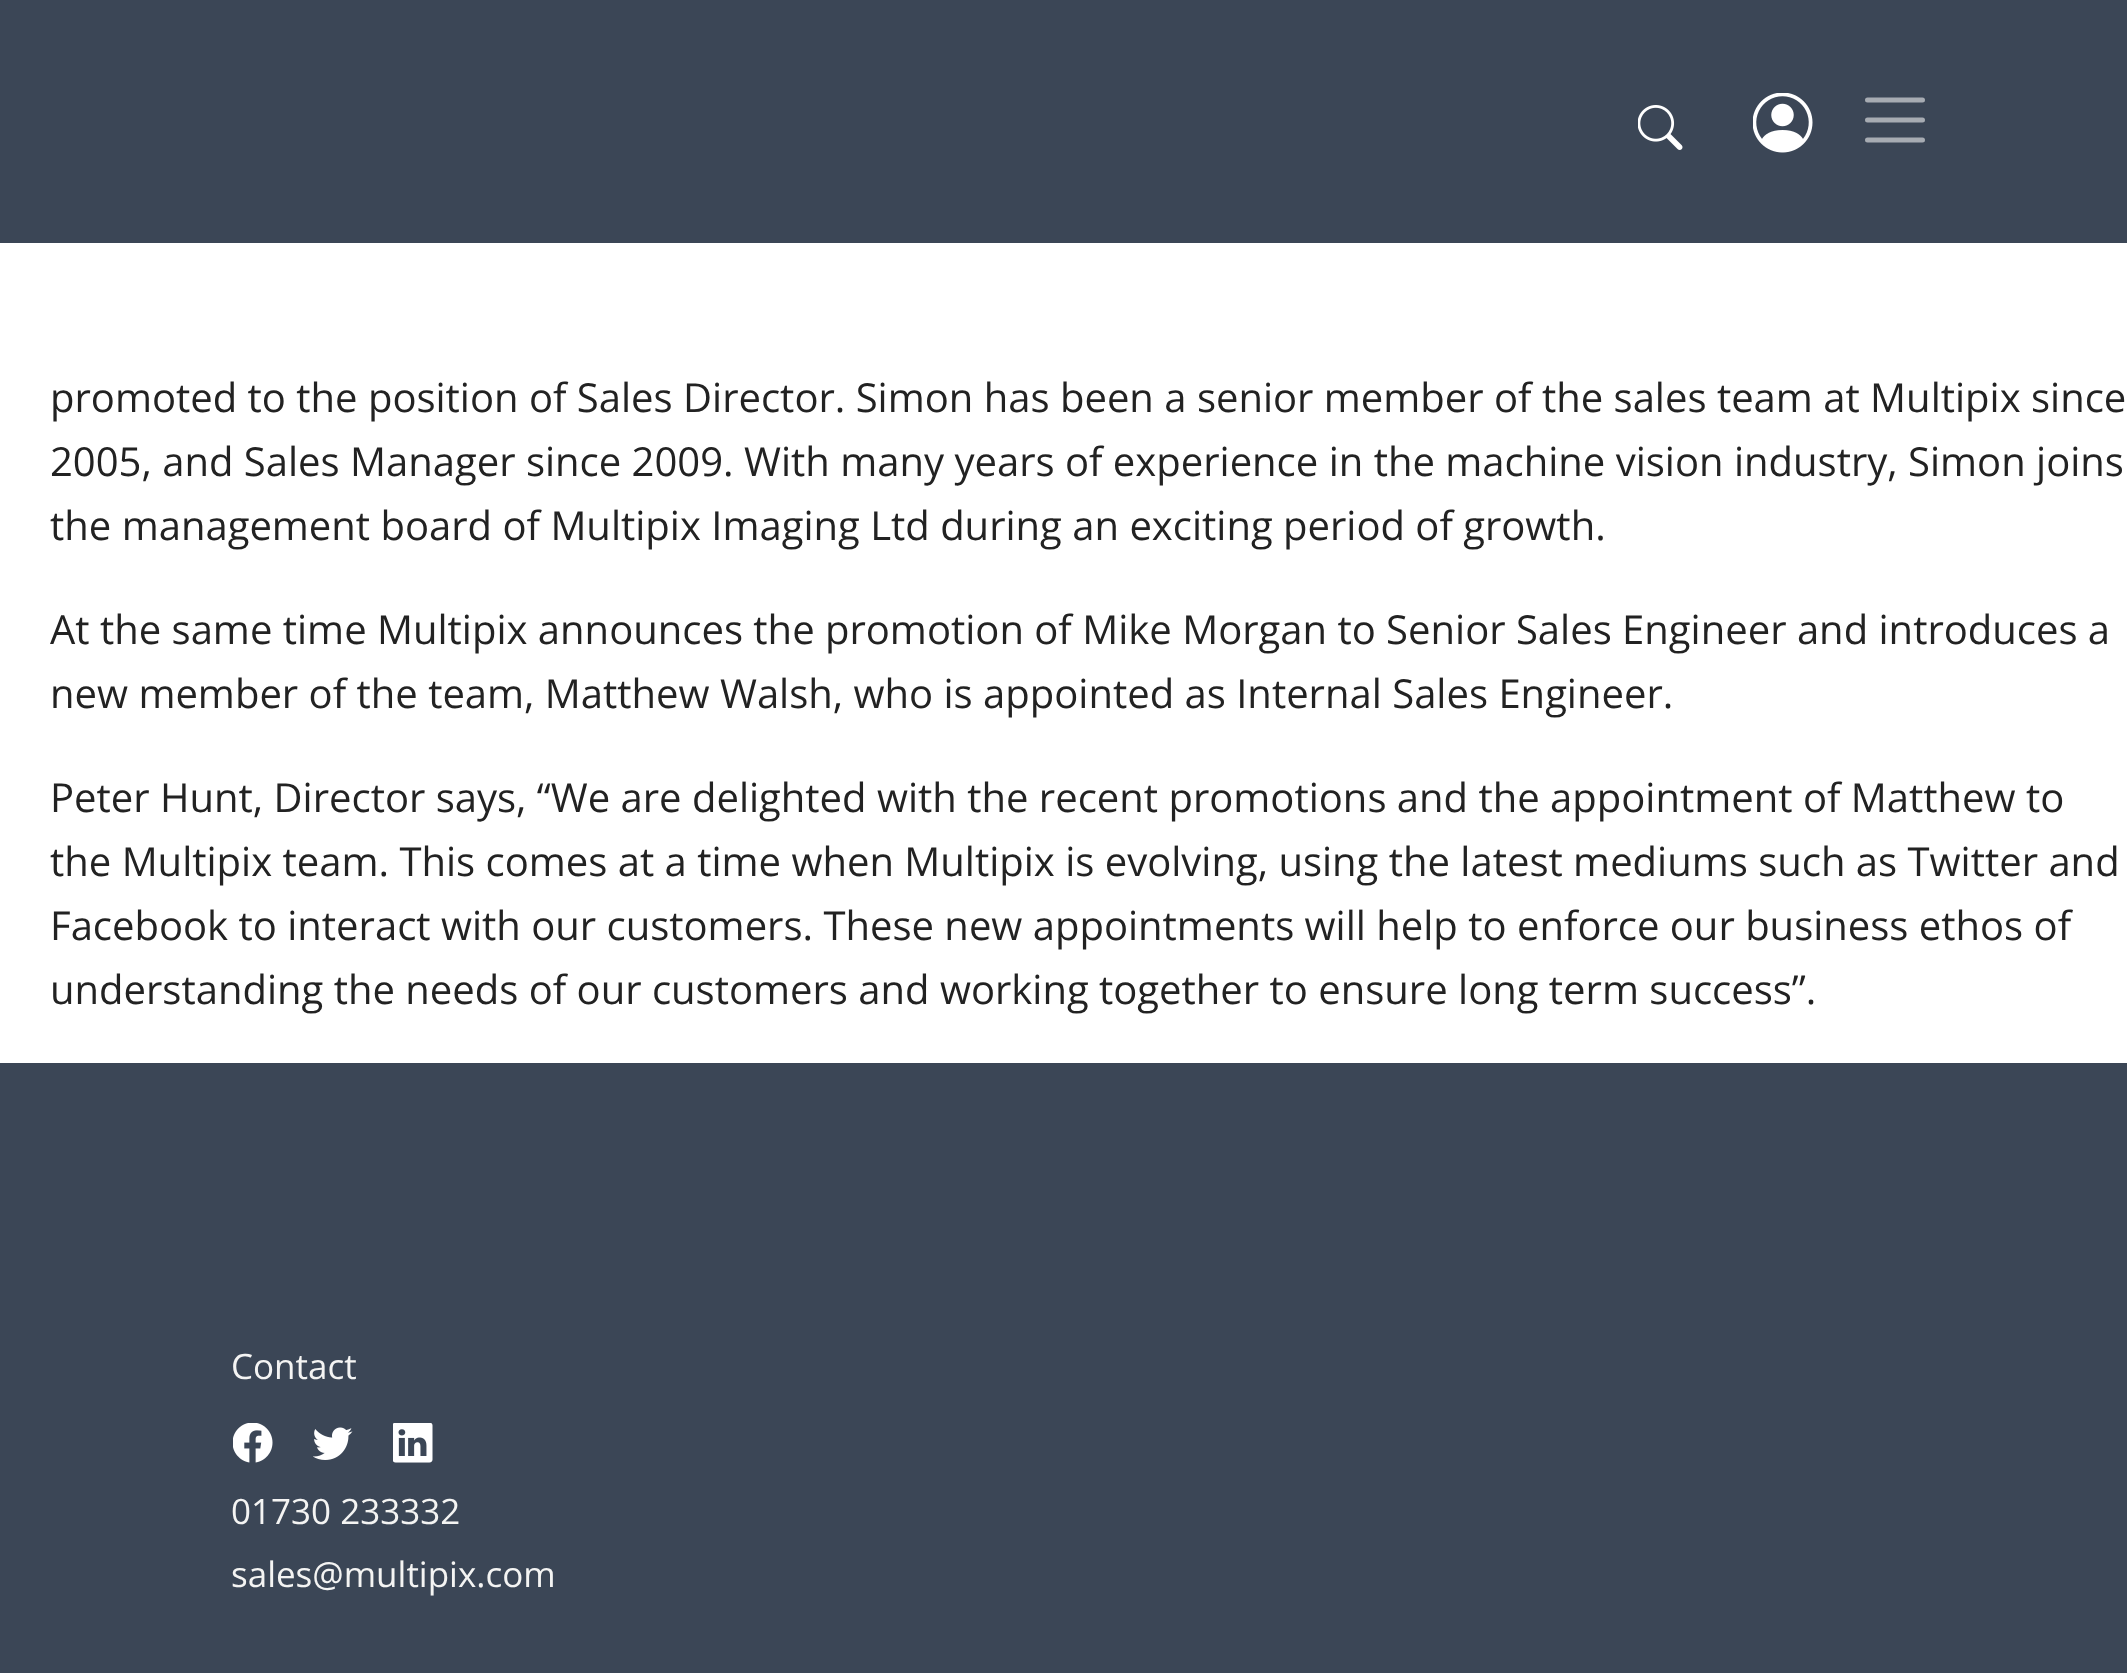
(async () => {
const canvas = document.querySelector("canvas")
canvas.width = 2127
canvas.height = 1673
const c = canvas.getContext("2d")
c.miterLimit = 4
c.fontKerning = "normal"
function T(s,x,y){c.fillText(s,x,y)}
function R(x,y,w,h){c.fillRect(x,y,w,h)}
async function I(src,x,y,w,h){const img=new Image();img.src=src;await img.decode();c.drawImage(img,x,y,w,h)}
let path
c.fillStyle="#fff"
R(0,0,2127,1673)
c.fillStyle="#3b4656"
R(0,0,2127,243)
await I("1.png",1638,105,45,45)
await I("2.png",1753,93,60,60)
path = new Path2D("M1867.5 100h55m-55 20h55m-55 20h55")
c.strokeStyle="#a7acb3"
c.lineWidth=5
c.lineCap="round"
c.stroke(path)
c.font="40px Open Sans"
c.fillStyle="#222"
T("promoted to the position of Sales Director. Simon has been a senior member of the sales team at Multipix since",50,412)
T("2005, and Sales Manager since 2009. With many years of experience in the machine vision industry, Simon joins",50,476)
T("the management board of Multipix Imaging Ltd during an exciting period of growth.",50,540)
T("At the same time Multipix announces the promotion of Mike Morgan to Senior Sales Engineer and introduces a",50,644)
T("new member of the team, Matthew Walsh, who is appointed as Internal Sales Engineer.",50,708)
T("Peter Hunt, Director says, “We are delighted with the recent promotions and the appointment of Matthew to",50,812)
T("the Multipix team. This comes at a time when Multipix is evolving, using the latest mediums such as Twitter and",50,876)
T("Facebook to interact with our customers. These new appointments will help to enforce our business ethos of",50,940)
T("understanding the needs of our customers and working together to ensure long term success”.",50,1004)
c.fillStyle="#3b4656"
R(0,1063,2127,610)
c.font="35px Open Sans"
c.fillStyle="#f4f4f3"
T("Contact",231,1379)
await I("3.png",233,1423,40,40)
await I("4.png",313,1427,40,33)
await I("5.png",393,1423,40,40)
T("01730 233332",231,1524)
T("sales@multipix.com",231,1587)
})()
